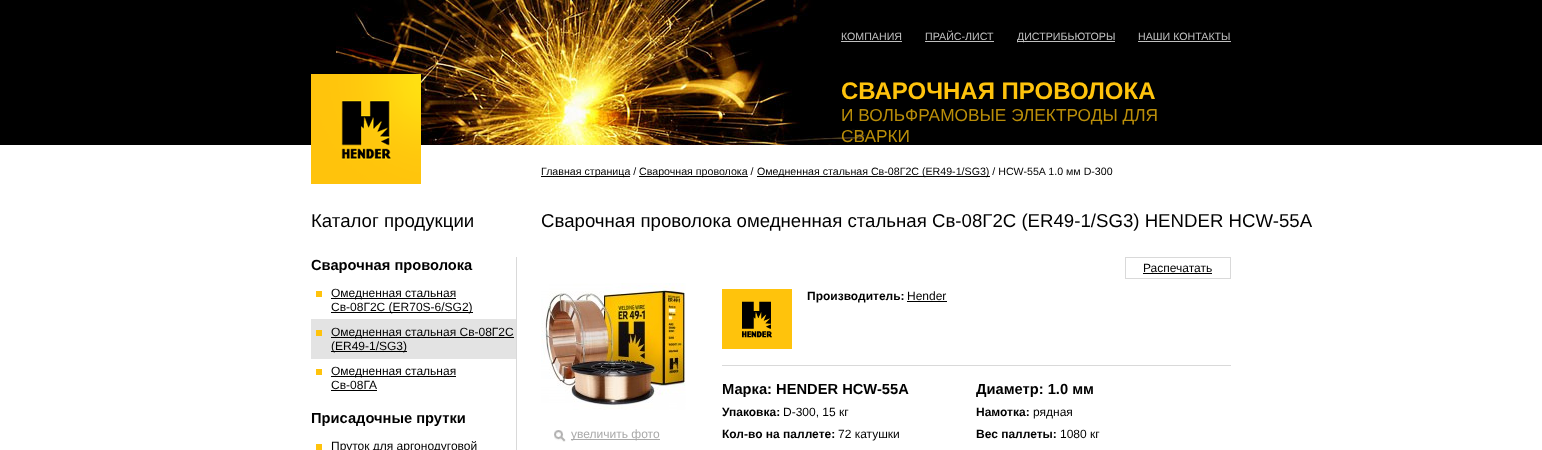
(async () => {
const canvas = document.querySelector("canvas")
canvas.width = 1542
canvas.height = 450
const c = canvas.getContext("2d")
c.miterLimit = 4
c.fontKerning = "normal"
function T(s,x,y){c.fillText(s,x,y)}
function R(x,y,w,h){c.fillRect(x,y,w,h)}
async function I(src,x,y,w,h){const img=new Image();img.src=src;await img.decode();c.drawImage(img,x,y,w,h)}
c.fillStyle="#000"
R(0,0,1542,450)
await I("1.png",336,0,530,145)
c.fillStyle="#fff"
R(0,145,1542,305)
await I("2.png",311,74,110,110)
c.font="10.65px Liberation Sans"
c.fillStyle="#c0c0c0"
T("КОМПАНИЯ",841,40)
R(841,41,61,1)
T("ПРАЙС-ЛИСТ",925,40)
R(925,41,69,1)
R(1017,41,98,1)
T("ДИСТРИБЬЮТОРЫ",1017,40)
T("НАШИ КОНТАКТЫ",1138,40)
R(1138,41,93,1)
c.font="bold 24px Liberation Sans"
c.fillStyle="#ffc30c"
T("СВАРОЧНАЯ ПРОВОЛОКА",841,99)
c.font="17.3px Liberation Sans"
c.fillStyle="#ba8e09"
T("И ВОЛЬФРАМОВЫЕ ЭЛЕКТРОДЫ ДЛЯ",841,121)
T("СВАРКИ",841,142)
c.fillStyle="#000"
R(541,176,89,1)
c.font="10.65px Liberation Sans"
T("Главная страница /",541,175)
R(639,176,109,1)
T("Сварочная проволока /",639,175)
R(757,176,233,1)
T("Омедненная стальная Св-08Г2С (ER49-1/SG3) / HCW-55A 1.0 мм D-300",757,175)
c.font="18.65px Liberation Sans"
T("Каталог продукции",311,227)
T("Сварочная проволока омедненная стальная Св-08Г2С (ER49-1/SG3) HENDER HCW-55A",541,227)
c.fillStyle="#d9d9d9"
R(516,257,1,193)
c.font="bold 14.7px Liberation Sans"
c.fillStyle="#000"
T("Сварочная проволока",311,270)
c.fillStyle="#ffc30c"
R(316,291,6,6)
c.fillStyle="#000"
R(331,298,125,1)
c.font="12px Liberation Sans"
T("Омедненная стальная",331,297)
R(331,312,142,1)
T("Св-08Г2С (ER70S-6/SG2)",331,311)
c.fillStyle="#e3e3e3"
R(311,319,205,40)
c.fillStyle="#ffc30c"
R(316,330,6,6)
c.fillStyle="#000"
R(331,337,183,1)
T("Омедненная стальная Св-08Г2С",331,336)
R(331,351,76,1)
T("(ER49-1/SG3)",331,350)
c.fillStyle="#ffc30c"
R(316,369,6,6)
c.fillStyle="#000"
R(331,376,125,1)
T("Омедненная стальная",331,375)
T("Св-08ГА",331,389)
R(331,390,46,1)
c.font="bold 14.7px Liberation Sans"
T("Присадочные прутки",311,423)
c.fillStyle="#ffc30c"
R(316,444,6,6)
c.font="12px Liberation Sans"
c.fillStyle="#000"
T("Пруток для аргонодуговой",331,450)
await I("3.png",541,283,145,127)
await I("4.png",554,430,12,12)
c.fillStyle="#aaa"
R(571,439,89,1)
T("увеличить фото",571,438)
c.strokeStyle="#d9d9d9"
c.strokeRect(1125.5,257.5,105,21)
c.fillStyle="#000"
T("Распечатать",1143,272)
R(1143,273,69,1)
c.fillStyle="#d9d9d9"
R(722,365,509,1)
c.fillStyle="#ffc30c"
R(722,289,70,60)
await I("5.png",742,301,30,37)
c.font="bold 12px Liberation Sans"
c.fillStyle="#000"
T("Производитель:",807,300)
c.font="12px Liberation Sans"
T("Hender",907,300)
R(907,301,40,1)
c.font="bold 14.7px Liberation Sans"
T("Марка: HENDER HCW-55A",722,394)
T("Диаметр: 1.0 мм",976,394)
c.font="bold 12px Liberation Sans"
T("Упаковка:",722,416)
c.font="12px Liberation Sans"
T("D-300, 15 кг",783,416)
c.font="bold 12px Liberation Sans"
T("Намотка:",976,416)
c.font="12px Liberation Sans"
T("рядная",1033,416)
c.font="bold 12px Liberation Sans"
T("Кол-во на паллете:",722,438)
c.font="12px Liberation Sans"
T("72 катушки",838,438)
c.font="bold 12px Liberation Sans"
T("Вес паллеты:",976,438)
c.font="12px Liberation Sans"
T("1080 кг",1060,438)
})()
